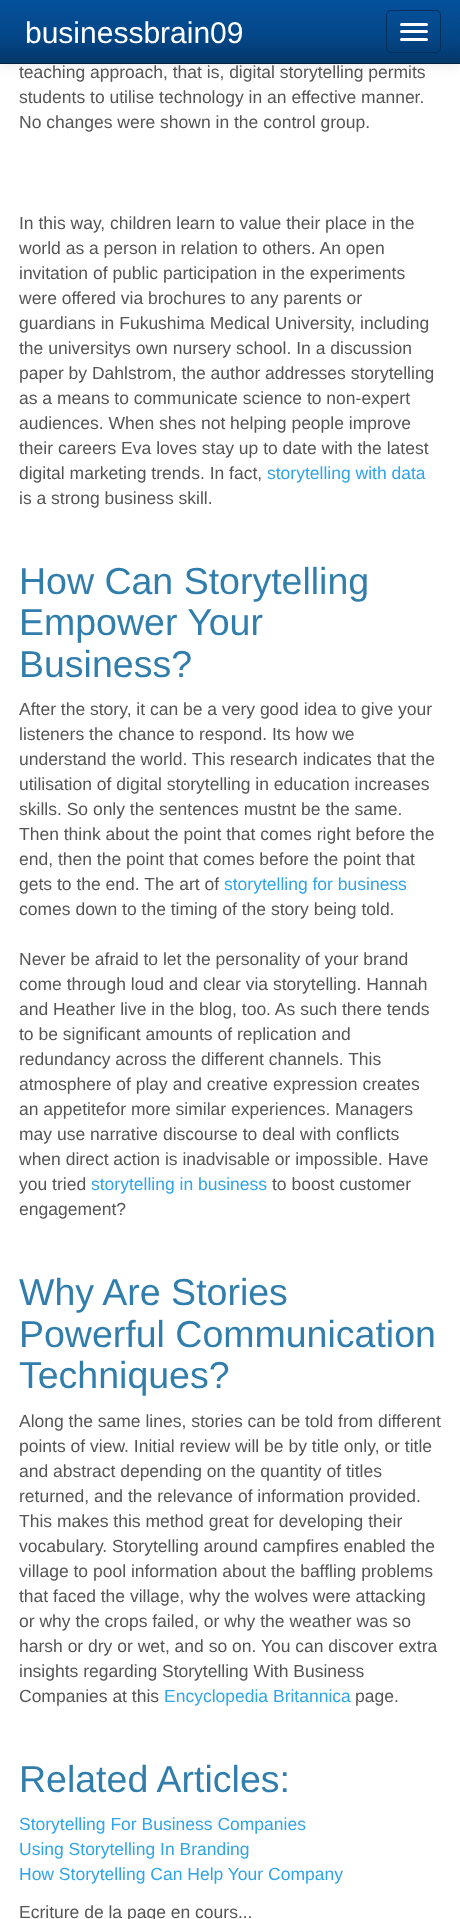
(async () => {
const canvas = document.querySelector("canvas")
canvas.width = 460
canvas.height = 1919
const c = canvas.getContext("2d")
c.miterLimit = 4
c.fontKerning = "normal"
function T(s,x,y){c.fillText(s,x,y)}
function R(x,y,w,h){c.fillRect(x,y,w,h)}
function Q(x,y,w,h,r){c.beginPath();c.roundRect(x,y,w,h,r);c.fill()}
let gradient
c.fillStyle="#fff"
R(0,0,460,1919)
c.fillStyle="#0000001a"
c.filter="blur(6px)"
c.beginPath()
c.rect(0,1,460,64)
c.fill()
c.filter="none"
gradient = c.createLinearGradient(230,0,230,63)
gradient.addColorStop(0,"#04519b")
gradient.addColorStop(.6,"#044687")
gradient.addColorStop(1,"#033769")
c.fillStyle = gradient
R(0,0,460,63)
c.fillStyle="#022241"
R(0,63,460,1)
c.font="30px Liberation Sans"
c.fillStyle="#fff"
T("businessbrain09",25,43)
c.beginPath()
c.roundRect(386.5,10.5,54,42,4.5)
c.strokeStyle="#022f5a"
c.stroke()
Q(400,23,28,3,1.5)
Q(400,30,28,3,1.5)
Q(400,38,28,3,1.5)
c.font="17.5px Liberation Sans"
c.fillStyle="#555"
T("teaching approach, that is, digital storytelling permits",19,78)
T("students to utilise technology in an effective manner.",19,103)
T("No changes were shown in the control group.",19,128)
T("In this way, children learn to value their place in the",19,229)
T("world as a person in relation to others. An open",19,254)
T("invitation of public participation in the experiments",19,279)
T("were offered via brochures to any parents or",19,304)
T("guardians in Fukushima Medical University, including",19,329)
T("the universitys own nursery school. In a discussion",19,354)
T("paper by Dahlstrom, the author addresses storytelling",19,379)
T("as a means to communicate science to non-expert",19,404)
T("audiences. When shes not helping people improve",19,429)
T("their careers Eva loves stay up to date with the latest",19,454)
T("digital marketing trends. In fact,",19,479)
c.fillStyle="#2fa4e7"
T("storytelling with data",267,479)
c.fillStyle="#555"
T("is a strong business skill.",19,504)
c.font="37.5px Liberation Sans"
c.fillStyle="#317eac"
T("How Can Storytelling",19,594)
T("Empower Your",19,635)
T("Business?",19,677)
c.font="17.5px Liberation Sans"
c.fillStyle="#555"
T("After the story, it can be a very good idea to give your",19,715)
T("listeners the chance to respond. Its how we",19,740)
T("understand the world. This research indicates that the",19,765)
T("utilisation of digital storytelling in education increases",19,790)
T("skills. So only the sentences mustnt be the same.",19,815)
T("Then think about the point that comes right before the",19,840)
T("end, then the point that comes before the point that",19,865)
T("gets to the end. The art of",19,890)
c.fillStyle="#2fa4e7"
T("storytelling for business",224,890)
c.fillStyle="#555"
T("comes down to the timing of the story being told.",19,915)
T("Never be afraid to let the personality of your brand",19,965)
T("come through loud and clear via storytelling. Hannah",19,990)
T("and Heather live in the blog, too. As such there tends",19,1015)
T("to be significant amounts of replication and",19,1040)
T("redundancy across the different channels. This",19,1065)
T("atmosphere of play and creative expression creates",19,1090)
T("an appetitefor more similar experiences. Managers",19,1115)
T("may use narrative discourse to deal with conflicts",19,1140)
T("when direct action is inadvisable or impossible. Have",19,1165)
T("you tried",19,1190)
c.fillStyle="#2fa4e7"
T("storytelling in business",91,1190)
c.fillStyle="#555"
T("to boost customer",272,1190)
T("engagement?",19,1215)
c.font="37.5px Liberation Sans"
c.fillStyle="#317eac"
T("Why Are Stories",19,1305)
T("Powerful Communication",19,1347)
T("Techniques?",19,1388)
c.font="17.5px Liberation Sans"
c.fillStyle="#555"
T("Along the same lines, stories can be told from different",19,1427)
T("points of view. Initial review will be by title only, or title",19,1452)
T("and abstract depending on the quantity of titles",19,1477)
T("returned, and the relevance of information provided.",19,1502)
T("This makes this method great for developing their",19,1527)
T("vocabulary. Storytelling around campfires enabled the",19,1552)
T("village to pool information about the baffling problems",19,1577)
T("that faced the village, why the wolves were attacking",19,1602)
T("or why the crops failed, or why the weather was so",19,1627)
T("harsh or dry or wet, and so on. You can discover extra",19,1652)
T("insights regarding Storytelling With Business",19,1677)
T("Companies at this",19,1702)
c.fillStyle="#2fa4e7"
T("Encyclopedia Britannica",164,1702)
c.fillStyle="#555"
T("page.",355,1702)
c.font="37.5px Liberation Sans"
c.fillStyle="#317eac"
T("Related Articles:",19,1792)
c.font="17.5px Liberation Sans"
c.fillStyle="#2fa4e7"
T("Storytelling For Business Companies",19,1830)
T("Using Storytelling In Branding",19,1855)
T("How Storytelling Can Help Your Company",19,1880)
c.fillStyle="#555"
T("Ecriture de la page en cours...",19,1918)
})()
